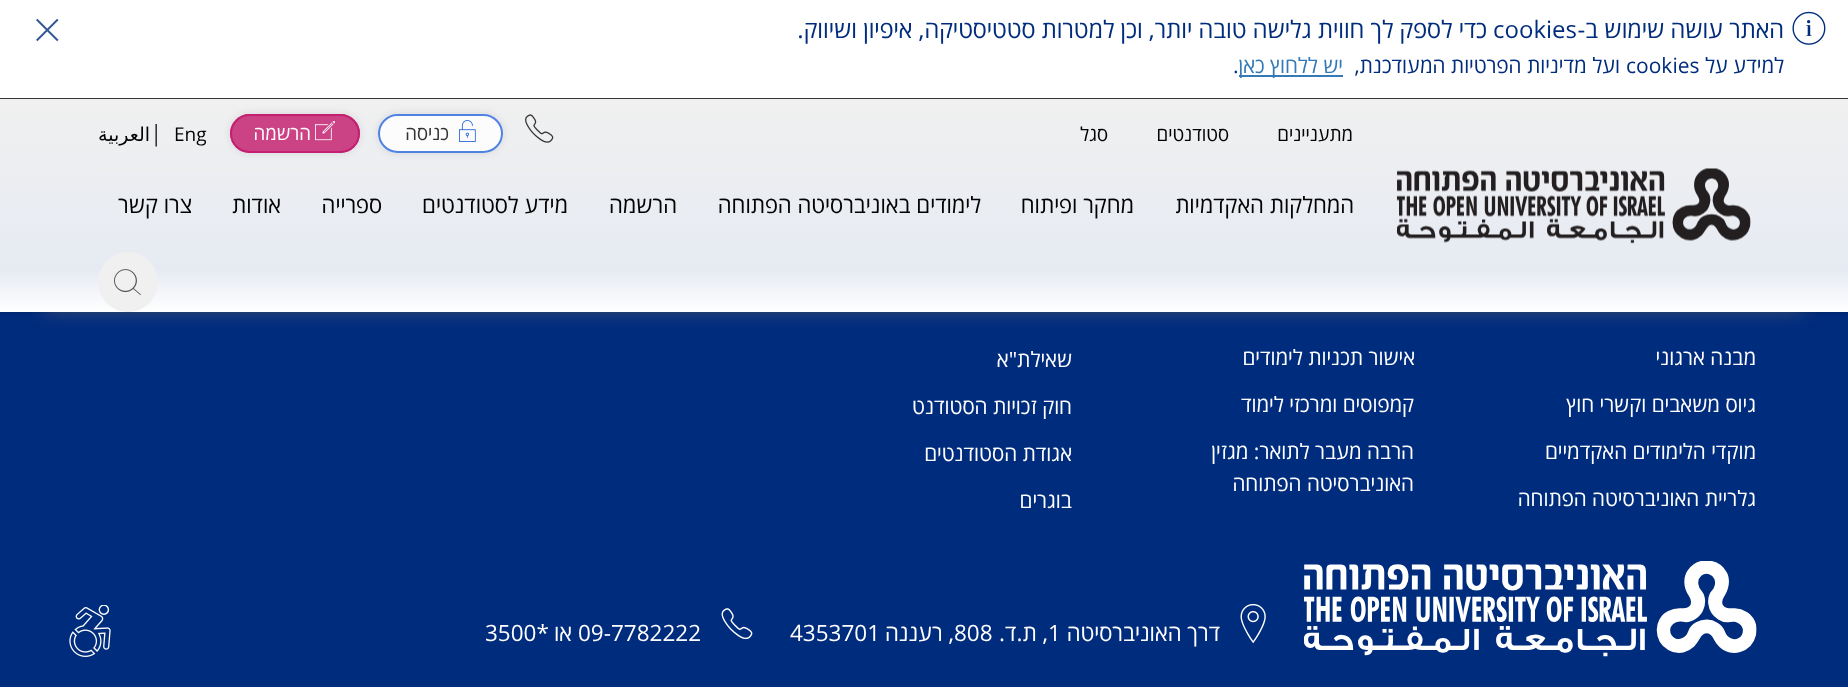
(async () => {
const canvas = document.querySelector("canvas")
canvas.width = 1848
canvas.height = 687
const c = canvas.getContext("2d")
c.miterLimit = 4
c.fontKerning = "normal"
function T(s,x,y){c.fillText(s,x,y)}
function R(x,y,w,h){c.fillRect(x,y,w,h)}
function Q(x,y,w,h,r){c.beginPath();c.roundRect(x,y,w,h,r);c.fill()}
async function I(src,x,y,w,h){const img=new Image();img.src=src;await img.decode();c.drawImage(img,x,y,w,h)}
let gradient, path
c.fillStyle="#002c7d"
R(0,0,1848,687)
c.fillStyle="#fff"
R(0,0,1848,98)
await I("1.png",1792,11,34,34)
c.direction="rtl"
c.font="24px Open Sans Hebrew"
c.fillStyle="#002c7d"
T("האתר עושה שימוש ב-",1784,38)
c.direction="ltr"
T("cookies",1493,38)
c.direction="rtl"
T("כדי לספק לך חווית גלישה טובה יותר, וכן למטרות סטטיסטיקה, איפיון ושיווק.",1487,38)
c.fillStyle="#353535"
R(0,98,1848,1)
await I("2.png",36,18,23,24)
c.font="21px Open Sans Hebrew"
c.fillStyle="#002c7d"
T("למידע על",1784,73)
c.direction="ltr"
T("cookies",1626,73)
c.direction="rtl"
T("ועל מדיניות הפרטיות המעודכנת,",1620,73)
c.fillStyle="#337ab7"
R(1239,75,104,2)
T("יש ללחוץ כאן",1343,73)
c.direction="ltr"
c.fillStyle="#002c7d"
T(".",1233,73)
c.save()
c.beginPath()
c.rect(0,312,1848,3)
c.clip()
c.fillStyle="#0000001a"
c.filter="blur(1.5px)"
c.beginPath()
c.rect(0,101,1848,213)
c.fill()
c.filter="none"
c.restore()
gradient = c.createLinearGradient(924,99,924,312)
gradient.addColorStop(0,"#f0f0f0")
gradient.addColorStop(.8,"#ffffffe6")
gradient.addColorStop(1,"#fff")
c.fillStyle = gradient
R(0,99,1848,213)
c.save()
c.beginPath()
c.rect(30,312,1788,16)
c.clip()
c.fillStyle="#777"
c.filter="blur(11px)"
c.beginPath()
c.rect(45,137,1758,168)
c.fill()
c.filter="none"
c.restore()
c.direction="rtl"
c.font="19px Open Sans Hebrew"
c.fillStyle="#020202"
T("מתעניינים",1353,141)
T("סטודנטים",1229,141)
T("סגל",1108,141)
await I("3.png",525,114,29,29)
c.save()
path = new Path2D("M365 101h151v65h-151zm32.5 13h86c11 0 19.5 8.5 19.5 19.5c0 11-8.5 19.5-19.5 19.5h-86c-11 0-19.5-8.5-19.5-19.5c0-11 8.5-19.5 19.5-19.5z")
c.clip(path,"evenodd")
c.fillStyle="#0000001a"
c.filter="blur(4px)"
c.beginPath()
c.roundRect(378,114,125,39,19.5)
c.fill()
c.filter="none"
c.restore()
c.fillStyle="#ffffffcc"
Q(378,114,125,39,19.5)
c.beginPath()
c.roundRect(379,115,123,37,18.5)
c.strokeStyle="#2363dbcc"
c.lineWidth=2
c.stroke()
await I("4.png",459,120,17,22)
c.fillStyle="#333"
T("כניסה",449,140)
c.save()
path = new Path2D("M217 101h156v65h-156zm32.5 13h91c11 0 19.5 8.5 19.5 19.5c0 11-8.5 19.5-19.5 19.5h-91c-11 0-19.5-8.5-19.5-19.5c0-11 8.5-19.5 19.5-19.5z")
c.clip(path,"evenodd")
c.fillStyle="#0000001a"
c.filter="blur(4px)"
c.beginPath()
c.roundRect(230,114,130,39,19.5)
c.fill()
c.filter="none"
c.restore()
c.fillStyle="#c2176acc"
Q(230,114,130,39,19.5)
c.beginPath()
c.roundRect(231,115,128,37,18.5)
c.strokeStyle="#c2176acc"
c.stroke()
await I("5.png",315,121,20,20)
c.fillStyle="#fff"
T("הרשמה",311,140)
c.direction="ltr"
c.fillStyle="#020202"
T("Eng",174,141)
c.font="22.5px Open Sans Hebrew"
c.fillStyle="#333"
T("|",150,141)
c.direction="rtl"
c.font="19px DejaVu Sans"
c.fillStyle="#020202"
T("العربية",150,141)
await I("6.png",1397,168,354,76)
c.fillStyle="#eee"
R(98,168,1276,2)
c.font="22.5px Open Sans Hebrew"
c.fillStyle="#020202"
T("המחלקות האקדמיות",1354,213)
T("מחקר ופיתוח",1134,213)
T("לימודים באוניברסיטה הפתוחה",981,213)
T("הרשמה",677,213)
T("מידע לסטודנטים",568,213)
T("ספרייה",382,213)
T("אודות",281,213)
T("צרו קשר",192,213)
c.fillStyle="#f0f0f0"
c.beginPath()
c.arc(128,282,30,0,7)
c.fill()
await I("7.png",114,269,27,26)
c.font="21px Open Sans Hebrew"
c.fillStyle="#fff"
T("מבנה ארגוני",1756,365)
T("גיוס משאבים וקשרי חוץ",1756,412)
T("מוקדי הלימודים האקדמיים",1756,459)
T("גלריית האוניברסיטה הפתוחה",1756,506)
T("אישור תכניות לימודים",1415,365)
T("קמפוסים ומרכזי לימוד",1414,412)
T("הרבה מעבר לתואר: מגזין",1414,459)
T("האוניברסיטה הפתוחה",1414,491)
T("שאילת\"א",1072,367)
T("חוק זכויות הסטודנט",1072,414)
T("אגודת הסטודנטים",1072,461)
T("בוגרים",1072,508)
await I("8.png",1304,561,453,96)
await I("9.png",1240,603,26,41)
c.font="22.5px Open Sans Hebrew"
T("דרך האוניברסיטה",1220,641)
c.direction="ltr"
T("1",1048,641)
c.direction="rtl"
T(", ת.ד.",1048,641)
c.direction="ltr"
T("808",954,641)
c.direction="rtl"
T(", רעננה",954,641)
c.direction="ltr"
T("4353701",790,641)
await I("10.png",721,608,32,32)
T("09-7782222",578,641)
c.direction="rtl"
T("או",572,641)
c.direction="ltr"
T("3500*",485,641)
await I("11.png",69,605,42,52)
})()
